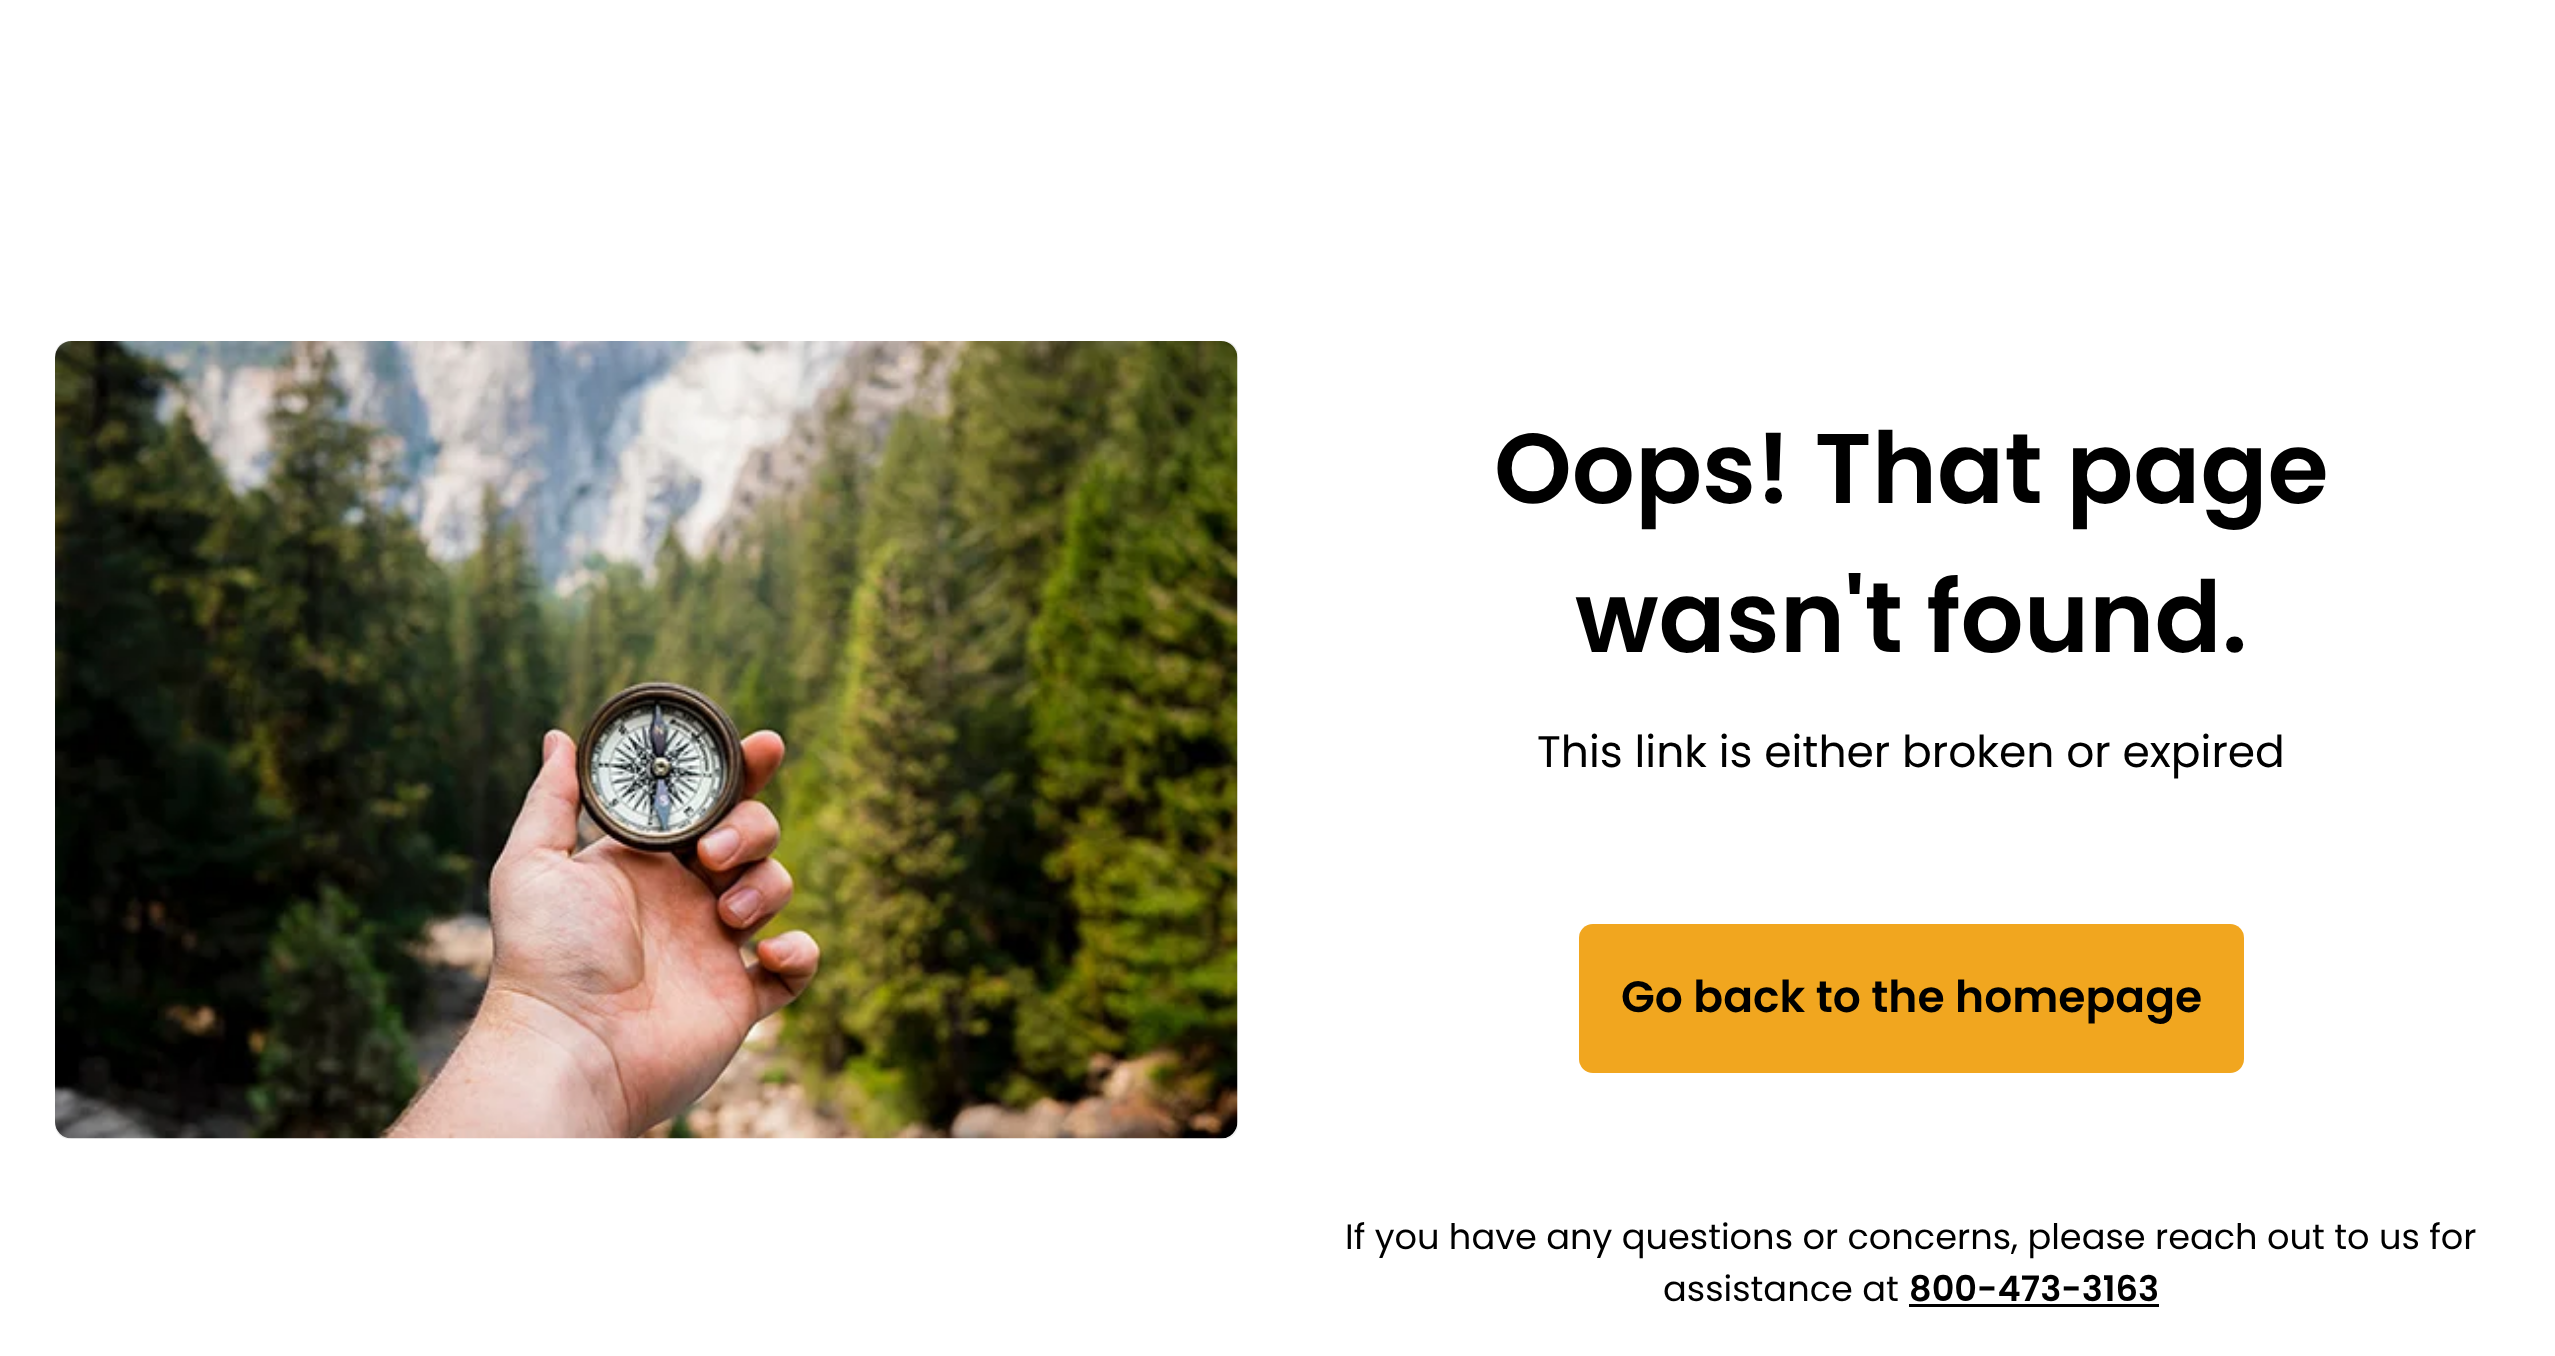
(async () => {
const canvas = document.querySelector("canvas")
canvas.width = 2555
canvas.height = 1356
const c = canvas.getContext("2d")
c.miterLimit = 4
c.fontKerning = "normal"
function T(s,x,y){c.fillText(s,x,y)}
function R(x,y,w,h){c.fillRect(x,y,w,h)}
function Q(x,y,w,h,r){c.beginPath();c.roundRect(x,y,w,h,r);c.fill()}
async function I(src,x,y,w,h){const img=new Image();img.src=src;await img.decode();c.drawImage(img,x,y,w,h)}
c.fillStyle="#fff"
R(0,0,2555,1356)
c.fillStyle="#eee"
Q(55,341,1183,798,14)
c.fillStyle="#fff"
Q(55,341,1183,798,17)
await I("1.png",55,341,1183,798)
c.font="600 99px Poppins"
c.fillStyle="#000"
T("Oops! That page",1494,503)
T("wasn't found.",1575,652)
c.font="44px Poppins"
T("This link is either broken or expired",1537,767)
c.fillStyle="#f1a61f"
Q(1579,924,665,149,14)
c.font="600 44px Poppins"
c.fillStyle="#000"
T("Go back to the homepage",1621,1012)
c.font="35.2px Poppins"
T("If you have any questions or concerns, please reach out to us for",1345,1249)
T("assistance at",1663,1301)
c.font="600 35.2px Poppins"
T("800-473-3163",1909,1301)
R(1909,1304,250,3)
})()
